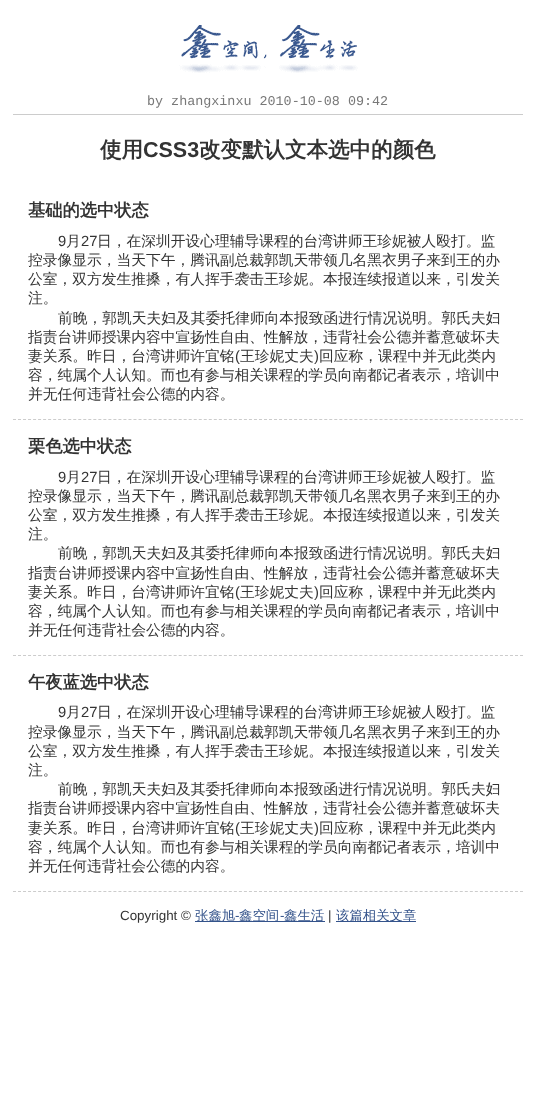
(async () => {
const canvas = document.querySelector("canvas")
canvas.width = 536
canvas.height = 1094
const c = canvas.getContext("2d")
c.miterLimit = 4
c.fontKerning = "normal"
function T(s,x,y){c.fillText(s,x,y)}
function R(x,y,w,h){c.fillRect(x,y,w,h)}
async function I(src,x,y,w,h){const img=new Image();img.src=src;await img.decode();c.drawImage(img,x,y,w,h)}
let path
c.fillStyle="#fff"
R(0,0,536,1094)
c.fillStyle="#ccc"
R(13,114,510,1)
await I("1.png",179,25,179,48)
c.font="13.4px Liberation Mono"
c.fillStyle="#787878"
T("by zhangxinxu 2010-10-08 09:42",147,105)
c.font="bold 21.5px WenQuanYi Zen Hei"
c.fillStyle="#333"
T("使用",100,157)
c.font="bold 21.5px Liberation Sans"
T("CSS3",143,157)
c.font="bold 21.5px WenQuanYi Zen Hei"
T("改变默认文本选中的颜色",199,157)
path = new Path2D("M13 419.5h510")
c.strokeStyle="#ccc"
c.setLineDash([3,2.02])
c.stroke(path)
c.font="bold 17.25px WenQuanYi Zen Hei"
T("基础的选中状态",28,216)
c.font="14.75px Liberation Sans"
T("9",58,246)
c.font="500 14.75px WenQuanYi Zen Hei"
T("月",66,246)
c.font="14.75px Liberation Sans"
T("27",81,246)
c.font="500 14.75px WenQuanYi Zen Hei"
T("日，在深圳开设心理辅导课程的台湾讲师王珍妮被人殴打。监",97,246)
T("控录像显示，当天下午，腾讯副总裁郭凯天带领几名黑衣男子来到王的办",28,265)
T("公室，双方发生推搡，有人挥手袭击王珍妮。本报连续报道以来，引发关",28,284)
T("注。",28,303)
T("前晚，郭凯天夫妇及其委托律师向本报致函进行情况说明。郭氏夫妇",58,323)
T("指责台讲师授课内容中宣扬性自由、性解放，违背社会公德并蓄意破坏夫",28,342)
T("妻关系。昨日，台湾讲师许宜铭",28,361)
c.font="14.75px Liberation Sans"
T("(",235,361)
c.font="500 14.75px WenQuanYi Zen Hei"
T("王珍妮丈夫",240,361)
c.font="14.75px Liberation Sans"
T(")",314,361)
c.font="500 14.75px WenQuanYi Zen Hei"
T("回应称，课程中并无此类内",319,361)
T("容，纯属个人认知。而也有参与相关课程的学员向南都记者表示，培训中",28,380)
T("并无任何违背社会公德的内容。",28,399)
path = new Path2D("M13 655.5h510")
c.stroke(path)
c.font="bold 17.25px WenQuanYi Zen Hei"
T("栗色选中状态",28,452)
c.font="14.75px Liberation Sans"
T("9",58,482)
c.font="500 14.75px WenQuanYi Zen Hei"
T("月",66,482)
c.font="14.75px Liberation Sans"
T("27",81,482)
c.font="500 14.75px WenQuanYi Zen Hei"
T("日，在深圳开设心理辅导课程的台湾讲师王珍妮被人殴打。监",97,482)
T("控录像显示，当天下午，腾讯副总裁郭凯天带领几名黑衣男子来到王的办",28,501)
T("公室，双方发生推搡，有人挥手袭击王珍妮。本报连续报道以来，引发关",28,520)
T("注。",28,539)
T("前晚，郭凯天夫妇及其委托律师向本报致函进行情况说明。郭氏夫妇",58,558)
T("指责台讲师授课内容中宣扬性自由、性解放，违背社会公德并蓄意破坏夫",28,578)
T("妻关系。昨日，台湾讲师许宜铭",28,597)
c.font="14.75px Liberation Sans"
T("(",235,597)
c.font="500 14.75px WenQuanYi Zen Hei"
T("王珍妮丈夫",240,597)
c.font="14.75px Liberation Sans"
T(")",314,597)
c.font="500 14.75px WenQuanYi Zen Hei"
T("回应称，课程中并无此类内",319,597)
T("容，纯属个人认知。而也有参与相关课程的学员向南都记者表示，培训中",28,616)
T("并无任何违背社会公德的内容。",28,635)
path = new Path2D("M13 891.5h510")
c.stroke(path)
c.font="bold 17.25px WenQuanYi Zen Hei"
T("午夜蓝选中状态",28,688)
c.font="14.75px Liberation Sans"
T("9",58,717)
c.font="500 14.75px WenQuanYi Zen Hei"
T("月",66,717)
c.font="14.75px Liberation Sans"
T("27",81,717)
c.font="500 14.75px WenQuanYi Zen Hei"
T("日，在深圳开设心理辅导课程的台湾讲师王珍妮被人殴打。监",97,717)
T("控录像显示，当天下午，腾讯副总裁郭凯天带领几名黑衣男子来到王的办",28,737)
T("公室，双方发生推搡，有人挥手袭击王珍妮。本报连续报道以来，引发关",28,756)
T("注。",28,775)
T("前晚，郭凯天夫妇及其委托律师向本报致函进行情况说明。郭氏夫妇",58,794)
T("指责台讲师授课内容中宣扬性自由、性解放，违背社会公德并蓄意破坏夫",28,813)
T("妻关系。昨日，台湾讲师许宜铭",28,833)
c.font="14.75px Liberation Sans"
T("(",235,833)
c.font="500 14.75px WenQuanYi Zen Hei"
T("王珍妮丈夫",240,833)
c.font="14.75px Liberation Sans"
T(")",314,833)
c.font="500 14.75px WenQuanYi Zen Hei"
T("回应称，课程中并无此类内",319,833)
T("容，纯属个人认知。而也有参与相关课程的学员向南都记者表示，培训中",28,852)
T("并无任何违背社会公德的内容。",28,871)
c.font="13.4px Liberation Sans"
T("Copyright ©",120,920)
c.fillStyle="#34538b"
R(195,921,130,1)
c.font="500 13.4px WenQuanYi Zen Hei"
T("张鑫旭",195,920)
c.font="13.4px Liberation Sans"
T("-",235,920)
c.font="500 13.4px WenQuanYi Zen Hei"
T("鑫空间",239,920)
c.font="13.4px Liberation Sans"
T("-",280,920)
c.font="500 13.4px WenQuanYi Zen Hei"
T("鑫生活",284,920)
c.font="13.4px Liberation Sans"
c.fillStyle="#333"
T("|",328,920)
c.fillStyle="#34538b"
R(336,921,80,1)
c.font="500 13.4px WenQuanYi Zen Hei"
T("该篇相关文章",336,920)
})()
